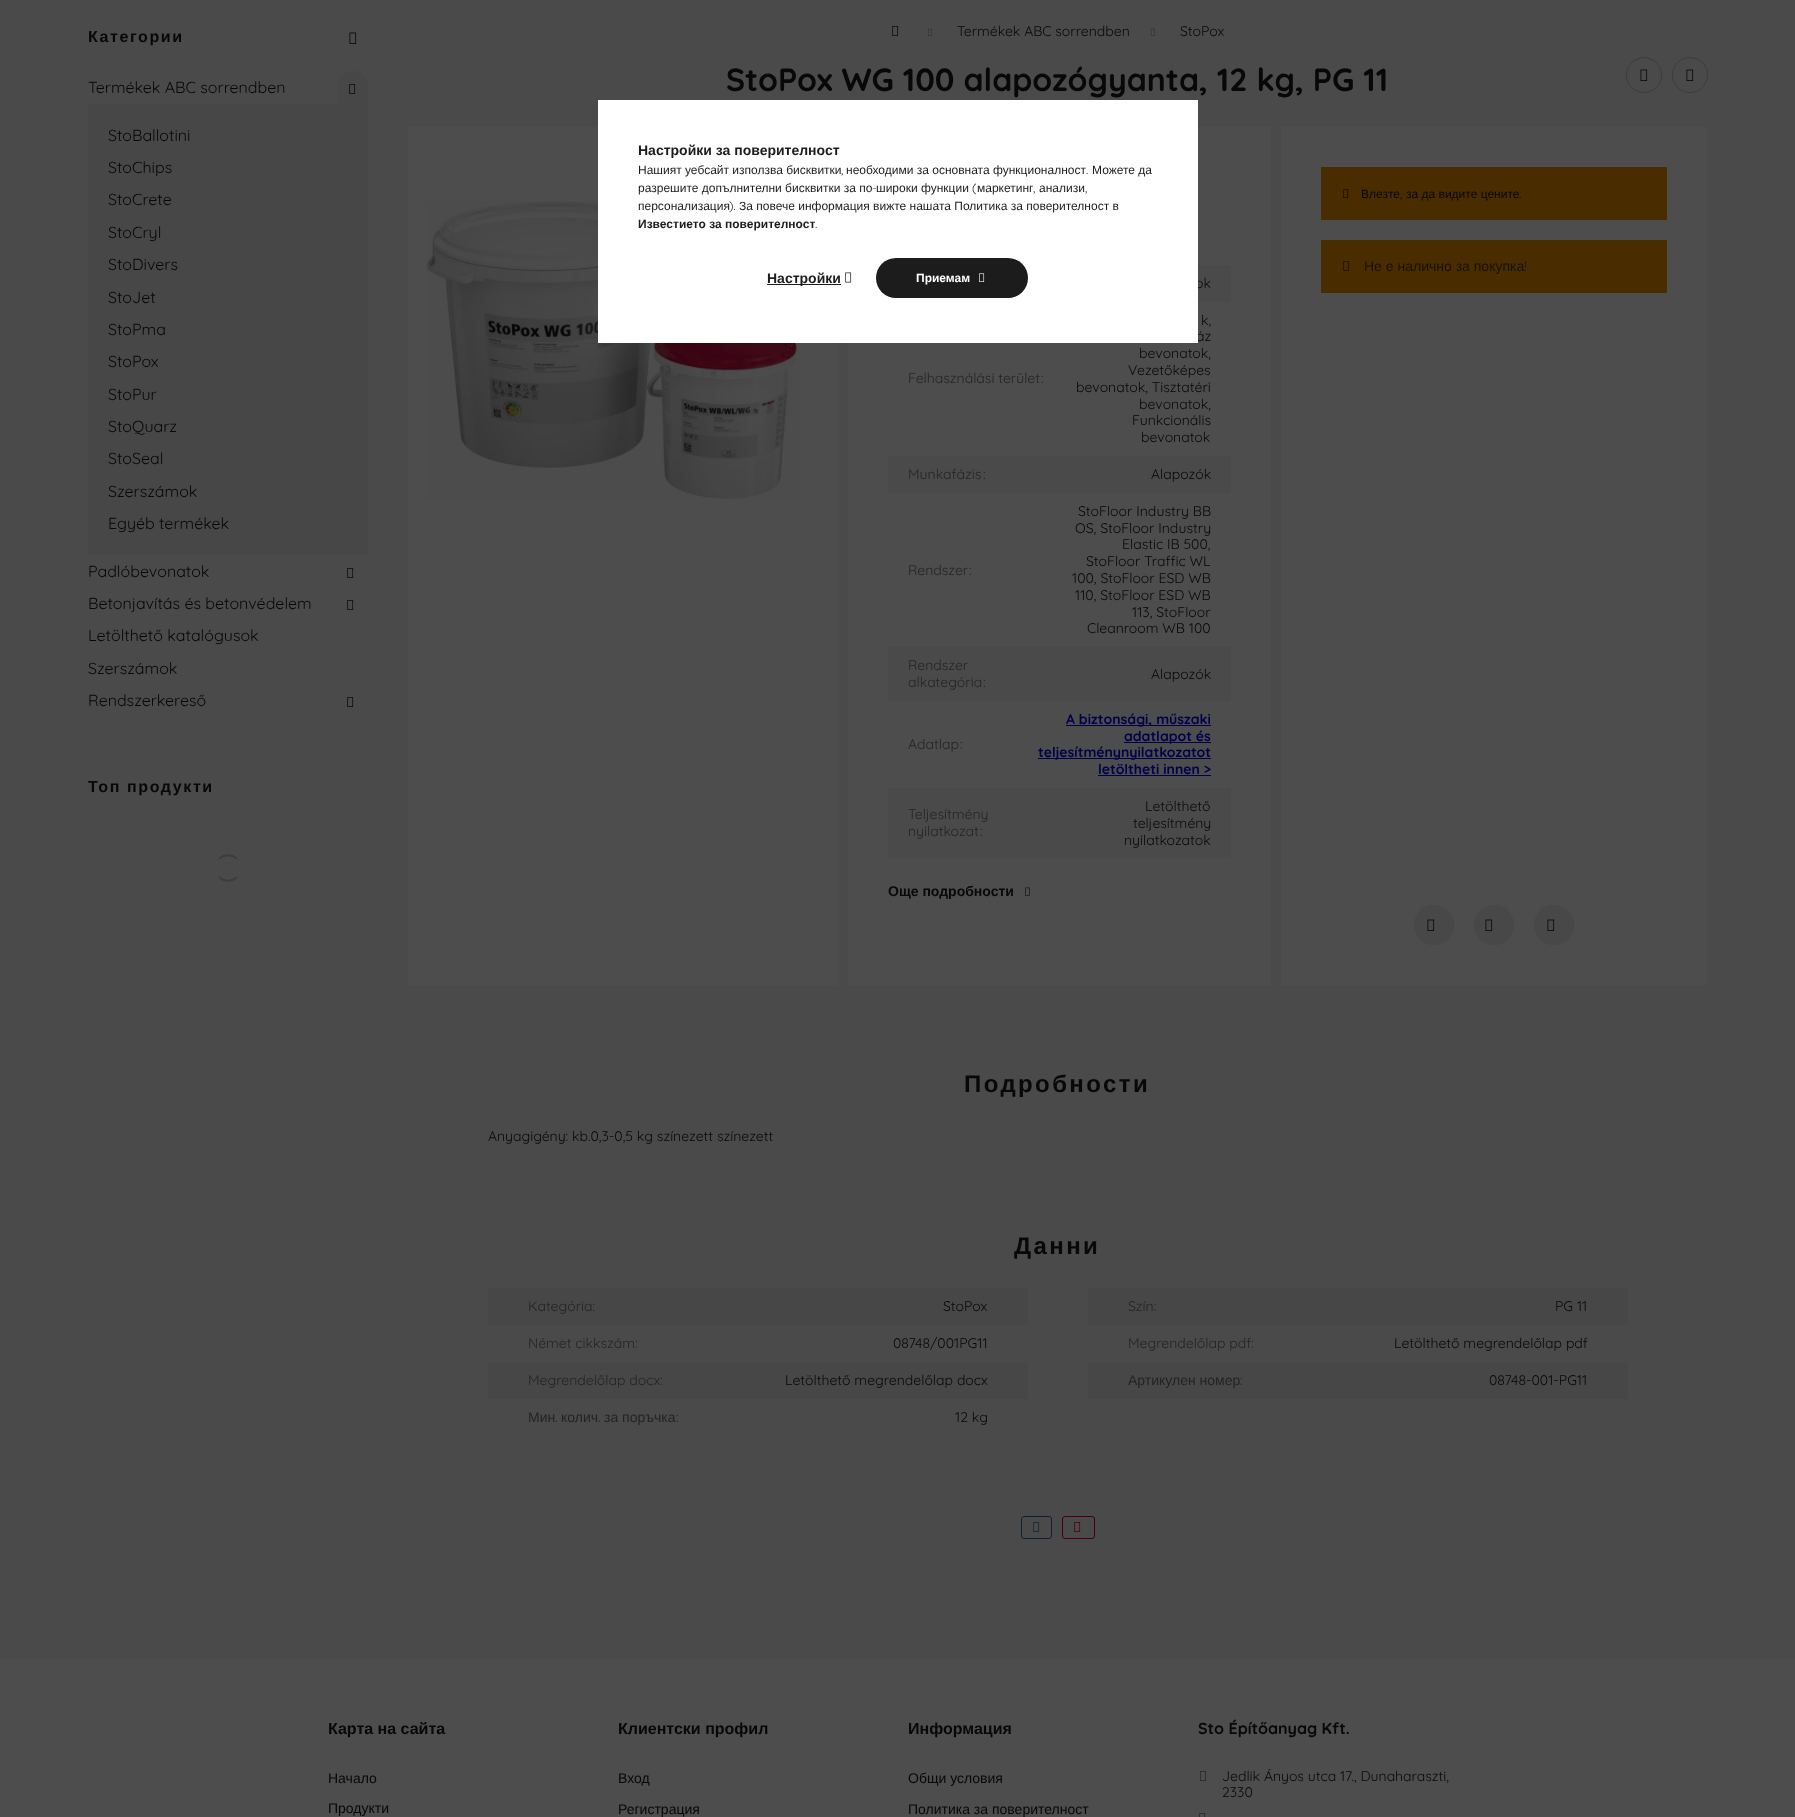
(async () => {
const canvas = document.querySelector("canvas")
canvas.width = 1795
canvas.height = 1817
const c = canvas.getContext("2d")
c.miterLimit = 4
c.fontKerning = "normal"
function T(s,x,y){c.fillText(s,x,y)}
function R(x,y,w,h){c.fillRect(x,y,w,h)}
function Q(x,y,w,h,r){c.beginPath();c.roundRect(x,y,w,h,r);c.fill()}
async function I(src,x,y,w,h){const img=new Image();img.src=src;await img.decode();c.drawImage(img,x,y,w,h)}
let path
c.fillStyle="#4a4a4a"
R(0,0,1795,1817)
c.letterSpacing="1.6px"
c.font="bold 16px Liberation Sans"
c.fillStyle="#080808"
T("Категории",88,42)
await I("1.png",349,32,8,12)
c.letterSpacing="0px"
c.font="16px Quicksand"
T("Termékek ABC sorrendben",88,93)
c.fillStyle="#474747"
c.beginPath()
c.roundRect(338,71,30,33,[15,15,0,0])
c.fill()
await I("2.png",349,84,7,10)
R(88,104,280,451)
c.fillStyle="#080808"
T("StoBallotini",108,141)
T("StoChips",108,173)
T("StoCrete",108,205)
T("StoCryl",108,238)
T("StoDivers",108,270)
T("StoJet",108,303)
T("StoPma",108,335)
T("StoPox",108,367)
T("StoPur",108,400)
T("StoQuarz",108,432)
T("StoSeal",108,464)
T("Szerszámok",108,497)
T("Egyéb termékek",108,529)
T("Padlóbevonatok",88,577)
await I("3.png",347,568,7,10)
T("Betonjavítás és betonvédelem",88,609)
await I("3.png",347,600,7,10)
T("Letölthető katalógusok",88,641)
T("Szerszámok",88,674)
T("Rendszerkereső",88,706)
await I("3.png",347,697,7,10)
c.letterSpacing="1.6px"
c.font="bold 16px Liberation Sans"
T("Топ продукти",88,792)
path = new Path2D("M219 859c5-5 13-5 18 0m0 18c-5 5-13 5-18 0")
c.strokeStyle="#3d3d3d"
c.lineWidth=2
c.stroke(path)
await I("3.png",892,26,7,10)
await I("4.png",927,28,6,8)
c.letterSpacing="0px"
c.font="14px Quicksand"
T("Termékek ABC sorrendben",957,36)
await I("4.png",1150,28,6,8)
T("StoPox",1180,36)
c.font="bold 32px Quicksand"
T("StoPox WG 100 alapozógyanta, 12 kg, PG 11",726,91)
c.beginPath()
c.arc(1644,75,17.5,0,7)
c.lineWidth=1
c.stroke()
await I("1.png",1640,69,8,12)
c.beginPath()
c.arc(1690,75,17.5,0,7)
c.stroke()
await I("1.png",1686,69,8,12)
c.fillStyle="#4d4d4d"
R(1281,127,426,858)
c.fillStyle="#492d00"
R(1321,167,346,53)
await I("5.png",1343,189,6,9)
c.font="12px Liberation Sans"
c.fillStyle="#080808"
T("Влезте",1361,198)
c.font="12px Quicksand"
T(",",1400,198)
c.font="12px Liberation Sans"
T("за да видите цените",1406,198)
c.font="12px Quicksand"
T(".",1519,198)
c.fillStyle="#492d00"
R(1321,240,346,53)
await I("6.png",1343,261,7,10)
c.font="14px Liberation Sans"
c.fillStyle="#1a1000"
T("Не е налично за покупка",1364,271)
c.font="14px Quicksand"
T("!",1524,271)
c.fillStyle="#484848"
c.beginPath()
c.arc(1434,925,20,0,7)
c.fill()
await I("7.png",1427,919,8,12)
c.beginPath()
c.arc(1494,925,20,0,7)
c.fill()
await I("7.png",1485,919,8,12)
c.beginPath()
c.arc(1554,925,20,0,7)
c.fill()
await I("7.png",1547,919,8,12)
c.fillStyle="#4d4d4d"
R(408,127,430,858)
await I("8.png",426,201,374,298)
R(848,127,423,858)
c.fillStyle="#4a4a4a"
R(1198,265,33,37)
c.fillStyle="#080808"
T("ok",1195,288)
c.fillStyle="#242424"
T("Felhasználási terület",908,383)
T(":",1041,383)
c.fillStyle="#080808"
T("k,",1201,325)
T("áz",1196,341)
T("bevonatok,",1139,358)
T("Vezetőképes",1128,375)
T("bevonatok, Tisztatéri",1076,392)
T("bevonatok,",1139,409)
T("Funkcionális",1132,425)
T("bevonatok",1141,442)
c.fillStyle="#4a4a4a"
R(888,456,343,37)
c.fillStyle="#242424"
T("Munkafázis",908,479)
T(":",983,479)
c.fillStyle="#080808"
T("Alapozók",1151,479)
c.fillStyle="#242424"
T("Rendszer",908,575)
T(":",969,575)
c.fillStyle="#080808"
T("StoFloor Industry BB",1078,516)
T("OS, StoFloor Industry",1075,533)
T("Elastic IB 500,",1122,549)
T("StoFloor Traffic WL",1086,566)
T("100, StoFloor ESD WB",1072,583)
T("110, StoFloor ESD WB",1075,600)
T("113, StoFloor",1132,617)
T("Cleanroom WB 100",1087,633)
c.fillStyle="#4a4a4a"
R(888,647,343,54)
c.fillStyle="#242424"
T("Rendszer",908,670)
T("alkategória",908,687)
T(":",983,687)
c.fillStyle="#080808"
T("Alapozók",1151,679)
c.fillStyle="#242424"
T("Adatlap",908,749)
T(":",960,749)
c.fillStyle="#00004d"
R(1066,725,145,1)
c.font="bold 14px Quicksand"
T("A biztonsági, műszaki",1066,724)
R(1124,742,87,1)
T("adatlapot és",1124,741)
R(1038,758,173,1)
T("teljesítménynyilatkozatot",1038,757)
T("letöltheti innen >",1098,774)
R(1098,775,113,1)
c.fillStyle="#4a4a4a"
R(888,788,343,70)
c.font="14px Quicksand"
c.fillStyle="#242424"
T("Teljesítmény",908,819)
T("nyilatkozat",908,836)
T(":",980,836)
c.fillStyle="#080808"
T("Letölthető",1145,811)
T("teljesítmény",1133,828)
T("nyilatkozatok",1124,845)
c.font="bold 14px Liberation Sans"
T("Още подробности",888,896)
await I("9.png",1025,887,5,9)
c.letterSpacing="2.4px"
c.font="bold 24px Liberation Sans"
T("Подробности",964,1092)
c.letterSpacing="0px"
c.font="14px Quicksand"
T("Anyagigény: kb.0,3-0,5 kg színezett színezett",488,1141)
c.letterSpacing="2.4px"
c.font="bold 24px Liberation Sans"
T("Данни",1014,1254)
c.fillStyle="#474747"
R(488,1288,540,37)
c.letterSpacing="0px"
c.font="14px Quicksand"
c.fillStyle="#242424"
T("Kategória:",528,1311)
c.fillStyle="#080808"
T("StoPox",943,1311)
c.fillStyle="#474747"
R(1088,1288,540,37)
c.fillStyle="#242424"
T("Szín:",1128,1311)
c.fillStyle="#080808"
T("PG 11",1555,1311)
c.fillStyle="#242424"
T("Német cikkszám:",528,1348)
c.fillStyle="#080808"
T("08748/001PG11",893,1348)
c.fillStyle="#242424"
T("Megrendelőlap pdf:",1128,1348)
c.fillStyle="#080808"
T("Letölthető megrendelőlap pdf",1394,1348)
c.fillStyle="#474747"
R(488,1362,540,37)
c.fillStyle="#242424"
T("Megrendelőlap docx:",528,1385)
c.fillStyle="#080808"
T("Letölthető megrendelőlap docx",785,1385)
c.fillStyle="#474747"
R(1088,1362,540,37)
c.font="14px Liberation Sans"
c.fillStyle="#242424"
T("Артикулен номер",1128,1385)
c.font="14px Quicksand"
T(":",1240,1385)
c.fillStyle="#080808"
T("08748-001-PG11",1489,1385)
c.font="14px Liberation Sans"
c.fillStyle="#242424"
T("Мин",528,1422)
c.font="14px Quicksand"
T(".",555,1422)
c.font="14px Liberation Sans"
T("колич",561,1422)
c.font="14px Quicksand"
T(".",598,1422)
c.font="14px Liberation Sans"
T("за поръчка",604,1422)
c.font="14px Quicksand"
T(":",676,1422)
c.fillStyle="#080808"
T("12 kg",955,1422)
c.beginPath()
c.roundRect(1021.5,1516.5,30,22,2.5)
c.strokeStyle="#141f35"
c.stroke()
await I("10.png",1033,1522,7,10)
c.beginPath()
c.roundRect(1062.5,1516.5,32,22,2.5)
c.strokeStyle="#45000b"
c.stroke()
await I("11.png",1074,1522,7,10)
c.fillStyle="#4d4d4d"
R(0,1659,1795,158)
c.font="bold 16px Liberation Sans"
c.fillStyle="#080808"
T("Карта на сайта",328,1734)
c.font="14px Liberation Sans"
T("Начало",328,1783)
T("Продукти",328,1813)
c.font="bold 16px Liberation Sans"
T("Клиентски профил",618,1734)
c.font="14px Liberation Sans"
T("Вход",618,1783)
T("Регистрация",618,1814)
c.font="bold 16px Liberation Sans"
T("Информация",908,1734)
c.font="14px Liberation Sans"
T("Общи условия",908,1783)
T("Политика за поверителност",908,1814)
c.font="bold 16px Quicksand"
T("Sto Építőanyag Kft.",1198,1734)
await I("12.png",1200,1771,7,10)
c.font="14px Quicksand"
T("Jedlik Ányos utca 17., Dunaharaszti,",1222,1781)
T("2330",1222,1797)
await I("13.png",1199,1813,7,4)
c.fillStyle="#fff"
R(598,100,600,243)
c.font="bold 14px Liberation Sans"
c.fillStyle="#1c1c1c"
T("Настройки за поверителност",638,155)
c.font="12px Liberation Sans"
T("Нашият уебсайт използва бисквитки",638,174)
T("необходими за основната функционалност",846,174)
T("Можете да",1092,174)
c.font="12px Quicksand"
T(",",841,174)
T(".",1086,174)
c.font="12px Liberation Sans"
T("разрешите допълнителни бисквитки за по",638,192)
c.font="12px Quicksand"
T("-",872,192)
c.font="12px Liberation Sans"
T("широки функции",876,192)
c.font="12px Quicksand"
T("(",972,192)
c.font="12px Liberation Sans"
T("маркетинг",977,192)
T("анализи",1039,192)
c.font="12px Quicksand"
T(",",1033,192)
T(",",1085,192)
c.font="12px Liberation Sans"
T("персонализация",638,210)
c.font="12px Quicksand"
T(").",729,210)
c.font="12px Liberation Sans"
T("За повече информация вижте нашата Политика за поверителност в",739,210)
c.font="bold 12px Liberation Sans"
T("Известието за поверителност",638,228)
c.font="12px Quicksand"
T(".",815,228)
R(767,284,74,1)
c.font="bold 14px Liberation Sans"
T("Настройки",767,283)
await I("14.png",845,272,7,11)
Q(876,258,152,40,20)
c.font="bold 12px Liberation Sans"
c.fillStyle="#fff"
T("Приемам",916,282)
await I("15.png",979,273,6,9)
})()
